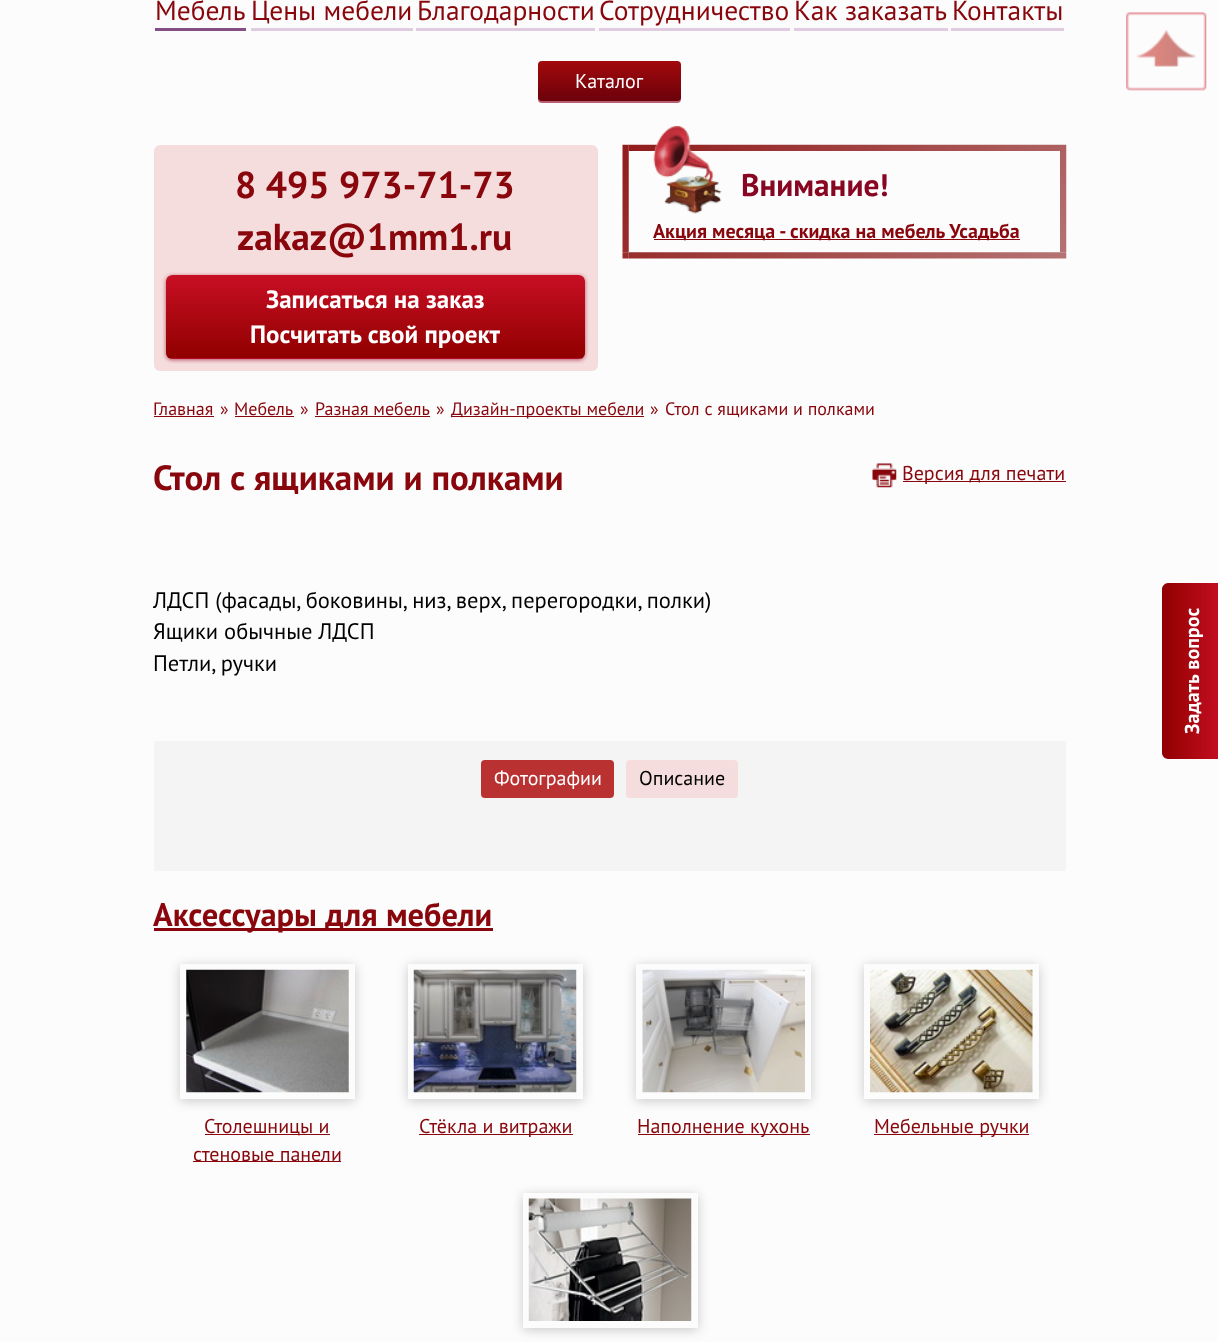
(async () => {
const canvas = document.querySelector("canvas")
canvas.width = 1218
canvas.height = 1342
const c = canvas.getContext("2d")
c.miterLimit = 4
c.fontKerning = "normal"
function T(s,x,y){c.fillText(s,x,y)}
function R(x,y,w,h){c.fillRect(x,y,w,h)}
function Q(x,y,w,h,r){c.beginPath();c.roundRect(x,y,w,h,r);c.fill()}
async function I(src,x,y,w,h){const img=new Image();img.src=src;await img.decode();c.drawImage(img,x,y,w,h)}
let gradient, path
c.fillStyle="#fcfcfc"
R(0,0,1218,1342)
c.font="27.5px PT Sans"
c.fillStyle="#88060c"
T("Мебель",155,20)
c.fillStyle="#844f87"
R(155,28,91,3)
c.fillStyle="#88060c"
T("Цены мебели",251,20)
c.fillStyle="#e0cce1"
R(251,28,162,3)
c.fillStyle="#88060c"
T("Благодарности",417,20)
c.fillStyle="#e0cce1"
R(416,28,179,3)
c.fillStyle="#88060c"
T("Сотрудничество",599,20)
c.fillStyle="#e0cce1"
R(599,28,191,3)
c.fillStyle="#88060c"
T("Как заказать",794,20)
c.fillStyle="#e0cce1"
R(794,28,154,3)
c.fillStyle="#88060c"
T("Контакты",952,20)
c.fillStyle="#e0cce1"
R(951,28,113,3)
c.fillStyle="#910825a6"
c.filter="blur(0.5px)"
c.beginPath()
c.roundRect(538,63,143,40,4)
c.fill()
c.filter="none"
gradient = c.createLinearGradient(609,61,609,101)
gradient.addColorStop(0,"#a20a0c")
gradient.addColorStop(1,"#6c010b")
c.fillStyle = gradient
Q(538,61,143,40,4)
c.font="20px PT Sans"
c.fillStyle="#fff"
T("Каталог",575,88)
c.fillStyle="#f6dddd"
Q(154,145,444,226,6)
c.font="bold 37.5px PT Sans"
c.fillStyle="#88060c"
T("8 495 973-71-73",235,198)
T("zakaz@1mm1.ru",237,250)
c.fillStyle="#910825a6"
c.filter="blur(2px)"
c.beginPath()
c.roundRect(166,276,419,84,6)
c.fill()
c.filter="none"
c.save()
c.beginPath()
c.roundRect(166,275,419,84,6)
c.clip()
gradient = c.createLinearGradient(376,358,376,275)
gradient.addColorStop(0,"#900000")
gradient.addColorStop(1,"#c80f24")
c.fillStyle = gradient
c.beginPath()
c.roundRect(166,275,419,83,[6,6,0,0])
c.fill()
gradient = c.createLinearGradient(376,440,376,358)
gradient.addColorStop(0,"#900000")
gradient.addColorStop(1,"#c80f24")
c.fillStyle = gradient
R(166,358,419,1)
c.restore()
c.fillStyle="#4e002126"
R(170,358,413,1)
c.font="bold 25px PT Sans"
c.fillStyle="#fff"
T("Записаться на заказ",266,308)
T("Посчитать свой проект",250,343)
await I("1.png",622,144,445,115)
await I("2.png",653,126,69,88)
c.font="bold 31.25px PT Sans"
c.fillStyle="#890622"
T("Внимание!",741,196)
c.fillStyle="#88060c"
R(654,239,366,1)
c.font="bold 20px PT Sans"
T("Акция месяца - скидка на мебель Усадьба",653,238)
await I("3.png",1126,12,81,79)
c.font="18px PT Sans"
T("Главная",153,415)
R(154,416,60,1)
T("»",220,415)
T("Мебель",234,415)
R(235,416,59,1)
T("»",300,415)
T("Разная мебель",315,415)
R(315,416,115,1)
T("»",436,415)
R(451,416,193,1)
T("Дизайн-проекты мебели",451,415)
T("»",650,415)
T("Стол с ящиками и полками",665,415)
c.font="bold 35px PT Sans"
T("Стол с ящиками и полками",153,490)
await I("4.png",872,463,25,25)
R(903,481,163,1)
c.font="20px PT Sans"
T("Версия для печати",902,480)
c.font="22.5px PT Sans"
c.fillStyle="#000"
T("ЛДСП (фасады, боковины, низ, верх, перегородки, полки)",153,608)
T("Ящики обычные ЛДСП",153,639)
T("Петли, ручки",153,671)
c.fillStyle="#f4f4f4"
R(154,741,912,130)
c.fillStyle="#b93131"
Q(481,760,133,38,4)
c.font="20px PT Sans"
c.fillStyle="#fff"
T("Фотографии",494,785)
c.fillStyle="#f6dddd"
Q(626,760,112,38,4)
c.fillStyle="#000"
T("Описание",639,785)
c.fillStyle="#88060c"
R(154,928,339,3)
c.font="bold 32.5px PT Sans"
T("Аксессуары для мебели",153,926)
c.save()
path = new Path2D("M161 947h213v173h-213zm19 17h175v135h-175z")
c.clip(path,"evenodd")
c.fillStyle="#01010133"
c.filter="blur(6px)"
c.beginPath()
c.rect(180,966,175,135)
c.fill()
c.filter="none"
c.restore()
await I("5.png",186,969,163,124)
R(205,1134,125,1)
c.font="20px PT Sans"
T("Столешницы и",204,1133)
R(193,1161,148,1)
T("стеновые панели",193,1161)
c.save()
path = new Path2D("M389 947h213v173h-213zm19 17h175v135h-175z")
c.clip(path,"evenodd")
c.fillStyle="#01010133"
c.filter="blur(6px)"
c.beginPath()
c.rect(408,966,175,135)
c.fill()
c.filter="none"
c.restore()
await I("6.png",413,969,164,124)
R(419,1134,154,1)
T("Стёкла и витражи",419,1133)
c.save()
path = new Path2D("M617 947h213v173h-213zm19 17h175v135h-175z")
c.clip(path,"evenodd")
c.fillStyle="#01010133"
c.filter="blur(6px)"
c.beginPath()
c.rect(636,966,175,135)
c.fill()
c.filter="none"
c.restore()
await I("7.png",642,969,163,124)
R(638,1134,172,1)
T("Наполнение кухонь",637,1133)
c.save()
path = new Path2D("M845 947h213v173h-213zm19 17h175v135h-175z")
c.clip(path,"evenodd")
c.fillStyle="#01010133"
c.filter="blur(6px)"
c.beginPath()
c.rect(864,966,175,135)
c.fill()
c.filter="none"
c.restore()
await I("8.png",870,969,163,124)
R(874,1134,155,1)
T("Мебельные ручки",874,1133)
c.save()
path = new Path2D("M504 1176h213v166h-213zm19 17h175v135h-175z")
c.clip(path,"evenodd")
c.fillStyle="#01010133"
c.filter="blur(6px)"
c.beginPath()
c.rect(523,1195,175,135)
c.fill()
c.filter="none"
c.restore()
await I("9.png",528,1198,164,123)
gradient = c.createLinearGradient(1162,671,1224,671)
gradient.addColorStop(0,"#900000")
gradient.addColorStop(1,"#c80f24")
c.fillStyle = gradient
path = new Path2D("M1162 753v-164c0-3 3-6 6-6h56v176h-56c-3 0-6-3-6-6z")
c.fill(path)
c.font="bold 20px PT Sans"
c.fillStyle="#fff"
c.save()
c.translate(1199,734)
c.rotate(-90 * Math.PI / 180)
c.fillText("Задать вопрос",0,0)
c.restore()
})()
